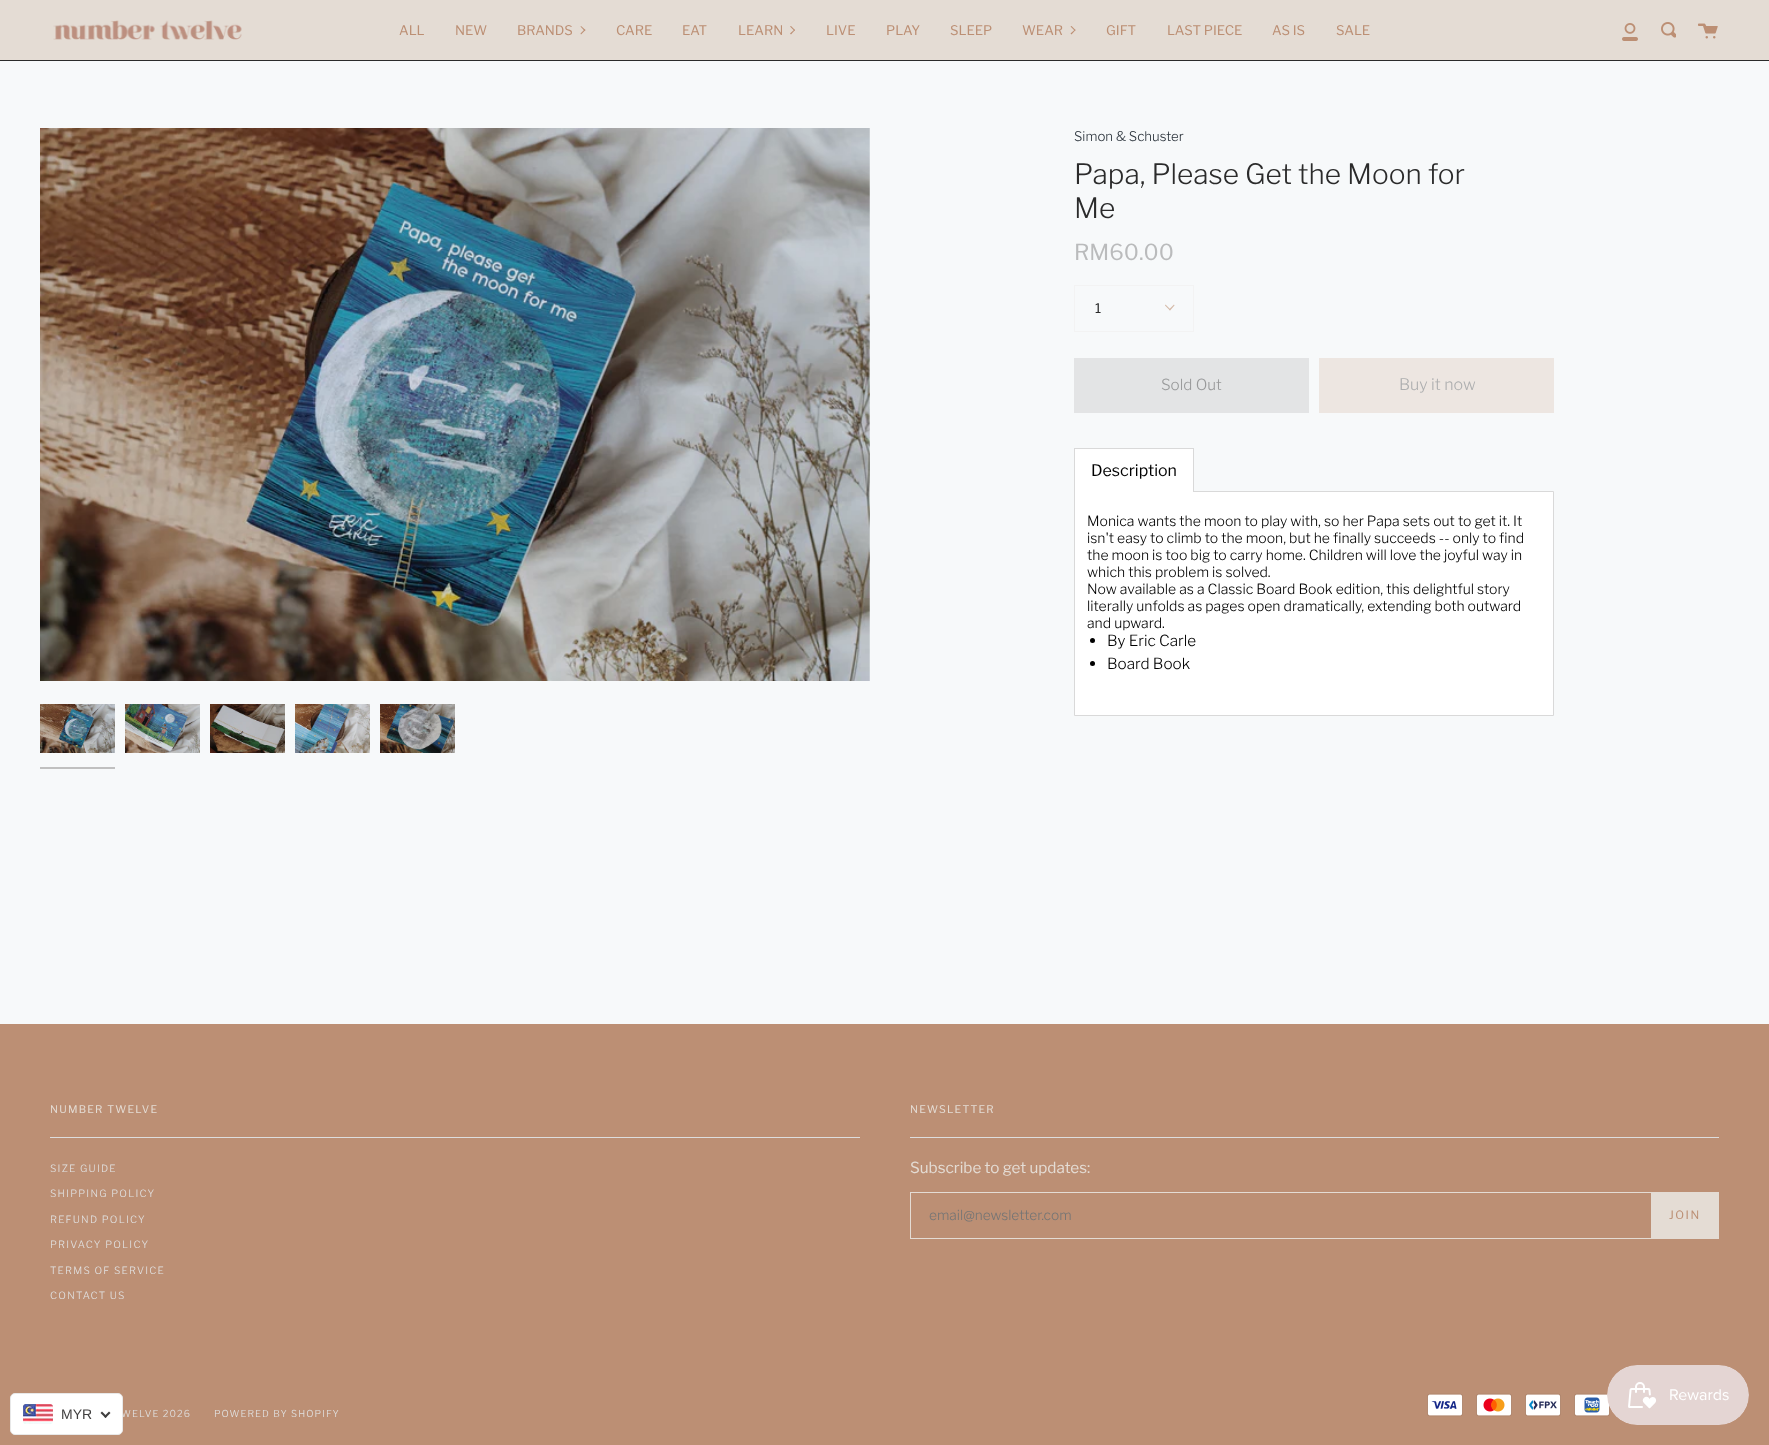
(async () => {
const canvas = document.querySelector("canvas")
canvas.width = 1769
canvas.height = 1445
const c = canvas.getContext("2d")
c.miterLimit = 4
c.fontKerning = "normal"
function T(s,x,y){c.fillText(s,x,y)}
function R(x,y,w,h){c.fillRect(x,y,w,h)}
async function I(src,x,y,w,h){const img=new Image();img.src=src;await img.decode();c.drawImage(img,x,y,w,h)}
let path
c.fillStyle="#f7f9fa"
R(0,0,1769,1445)
c.fillStyle="#2b2b2b"
R(0,60,1769,1)
c.fillStyle="#e4dcd4"
R(0,0,1769,60)
await I("1.png",53,20,189,20)
c.font="13.25px Libre Franklin"
c.fillStyle="#bc8f74"
T("ALL",399,35)
T("NEW",455,35)
T("BRANDS",517,35)
path = new Path2D("M584.5 31l-4-4.5l.5-.5l4.5 4z")
c.fill(path)
path = new Path2D("M581 34.5l-.5-1l4-4l1 .5z")
c.fill(path)
T("CARE",616,35)
T("EAT",682,35)
T("LEARN",738,35)
path = new Path2D("M794.5 31l-4.5-4.5l1-.5l4 4z")
c.fill(path)
path = new Path2D("M791 34.5l-1-1l4.5-4l.5 .5z")
c.fill(path)
T("LIVE",826,35)
T("PLAY",886,35)
T("SLEEP",950,35)
T("WEAR",1022,35)
path = new Path2D("M1075 31l-4.5-4.5l1-.5l4 4z")
c.fill(path)
path = new Path2D("M1071.5 34.5l-1-1l4.5-4l.5 .5z")
c.fill(path)
T("GIFT",1106,35)
T("LAST PIECE",1167,35)
T("AS IS",1272,35)
T("SALE",1336,35)
await I("2.png",1622,23,16,18)
await I("3.png",1661,22,15,16)
await I("4.png",1698,23,20,16)
await I("5.png",40,128,830,553)
await I("6.png",40,704,75,49)
c.fillStyle="#c0c0c0"
R(40,767,75,2)
await I("7.png",125,704,75,49)
await I("8.png",210,704,75,49)
await I("9.png",295,704,75,49)
await I("10.png",380,704,75,49)
c.font="300 13.25px Libre Franklin"
c.fillStyle="#2b333b"
T("Simon & Schuster",1074,141)
c.font="300 28px Libre Franklin"
c.fillStyle="#2b2b2b"
T("Papa, Please Get the Moon for",1074,184)
T("Me",1074,218)
c.font="22px Libre Franklin"
c.fillStyle="#babbbc"
T("RM60.00",1074,260)
c.strokeStyle="#f3f3f3"
c.strokeRect(1074.5,285.5,119,46)
c.font="13.25px Libre Franklin"
c.fillStyle="#2b2b2b"
T("1",1095,313)
c.fillStyle="#d4b9a7"
path = new Path2D("M1169 309.5l5-5l.5 1l-4.5 5z")
c.fill(path)
path = new Path2D("M1165 305.5l.5-1l5 5l-.5 1z")
c.fill(path)
c.fillStyle="#e3e4e5"
R(1074,358,235,55)
c.font="300 15.25px Libre Franklin"
c.fillStyle="#999a9b"
T("Sold Out",1161,390)
c.fillStyle="#ede6e1"
R(1319,358,235,55)
c.font="300 16px Libre Franklin"
c.fillStyle="#adaeaf"
T("Buy it now",1399,390)
c.fillStyle="#fff"
c.beginPath()
c.rect(1074.5,491.5,479,224)
c.fill()
c.strokeStyle="#d9d9d9"
c.stroke()
R(1075,449,118,43)
c.fillStyle="#d9d9d9"
R(1074,448,120,1)
R(1193,448,1,44)
R(1074,448,1,44)
c.font="16px Libre Franklin"
c.fillStyle="#000"
T("Description",1091,476)
c.font="300 14px Libre Franklin"
T("Monica wants the moon to play with, so her Papa sets out to get it. It",1087,526)
T("isn't easy to climb to the moon, but he finally succeeds -- only to find",1087,543)
T("the moon is too big to carry home. Children will love the joyful way in",1087,560)
T("which this problem is solved.",1087,577)
T("Now available as a Classic Board Book edition, this delightful story",1087,594)
T("literally unfolds as pages open dramatically, extending both outward",1087,611)
T("and upward.",1087,628)
c.beginPath()
c.arc(1092.5,640.5,2.5,0,7)
c.fill()
c.font="300 15.25px Libre Franklin"
T("By Eric Carle",1107,646)
c.beginPath()
c.arc(1092.5,663.5,2.5,0,7)
c.fill()
T("Board Book",1107,669)
c.fillStyle="#bc8f74"
R(0,1024,1769,421)
c.letterSpacing="1.25px"
c.font="10.5px Libre Franklin"
c.fillStyle="#e4dcd4"
T("NUMBER TWELVE",50,1113)
c.fillStyle="#ddd"
R(50,1137,810,1)
c.font="300 10px Libre Franklin"
c.fillStyle="#e1e1e1"
T("SIZE GUIDE",50,1172)
T("SHIPPING POLICY",50,1197)
T("REFUND POLICY",50,1223)
T("PRIVACY POLICY",50,1248)
T("TERMS OF SERVICE",50,1274)
T("CONTACT US",50,1299)
c.font="10.5px Libre Franklin"
c.fillStyle="#e4dcd4"
T("NEWSLETTER",910,1113)
c.fillStyle="#ddd"
R(910,1137,809,1)
c.letterSpacing="0px"
c.font="15.25px Libre Franklin"
c.fillStyle="#e4dcd4"
T("Subscribe to get updates:",910,1173)
c.strokeStyle="#e4dcd4"
c.strokeRect(910.5,1192.5,808,46)
c.font="300 13.75px Libre Franklin"
c.fillStyle="#757575"
T("email@newsletter.com",929,1220)
c.fillStyle="#e4dcd4"
R(1651,1193,67,45)
c.letterSpacing="1.5px"
c.font="11.5px Libre Franklin"
c.fillStyle="#bc8f74"
T("JOIN",1669,1219)
c.letterSpacing="1.1px"
c.font="300 9.5px Libre Franklin"
c.fillStyle="#e1e1e1"
T("WELVE 2026",121,1417)
T("POWERED BY SHOPIFY",214,1417)
await I("11.png",1427,1393,36,24)
await I("12.png",1476,1393,36,24)
await I("13.png",1525,1393,36,24)
await I("14.png",1574,1393,36,24)
c.fillStyle="#fff"
c.beginPath()
c.roundRect(10.5,1393.5,112,41,4.5)
c.fill()
c.strokeStyle="#e8e8e8"
c.stroke()
await I("15.png",23,1404,30,20)
c.letterSpacing="0px"
c.font="14px Liberation Sans"
c.fillStyle="#403f3f"
T("MYR",61,1419)
path = new Path2D("M109 1411.5l1.5 1.5l-5 5l-1.5-1.5z")
c.fill(path)
path = new Path2D("M102 1411.5l5 5l-1.5 1.5l-5-5z")
c.fill(path)
await I("16.png",1607,1365,142,60)
})()
